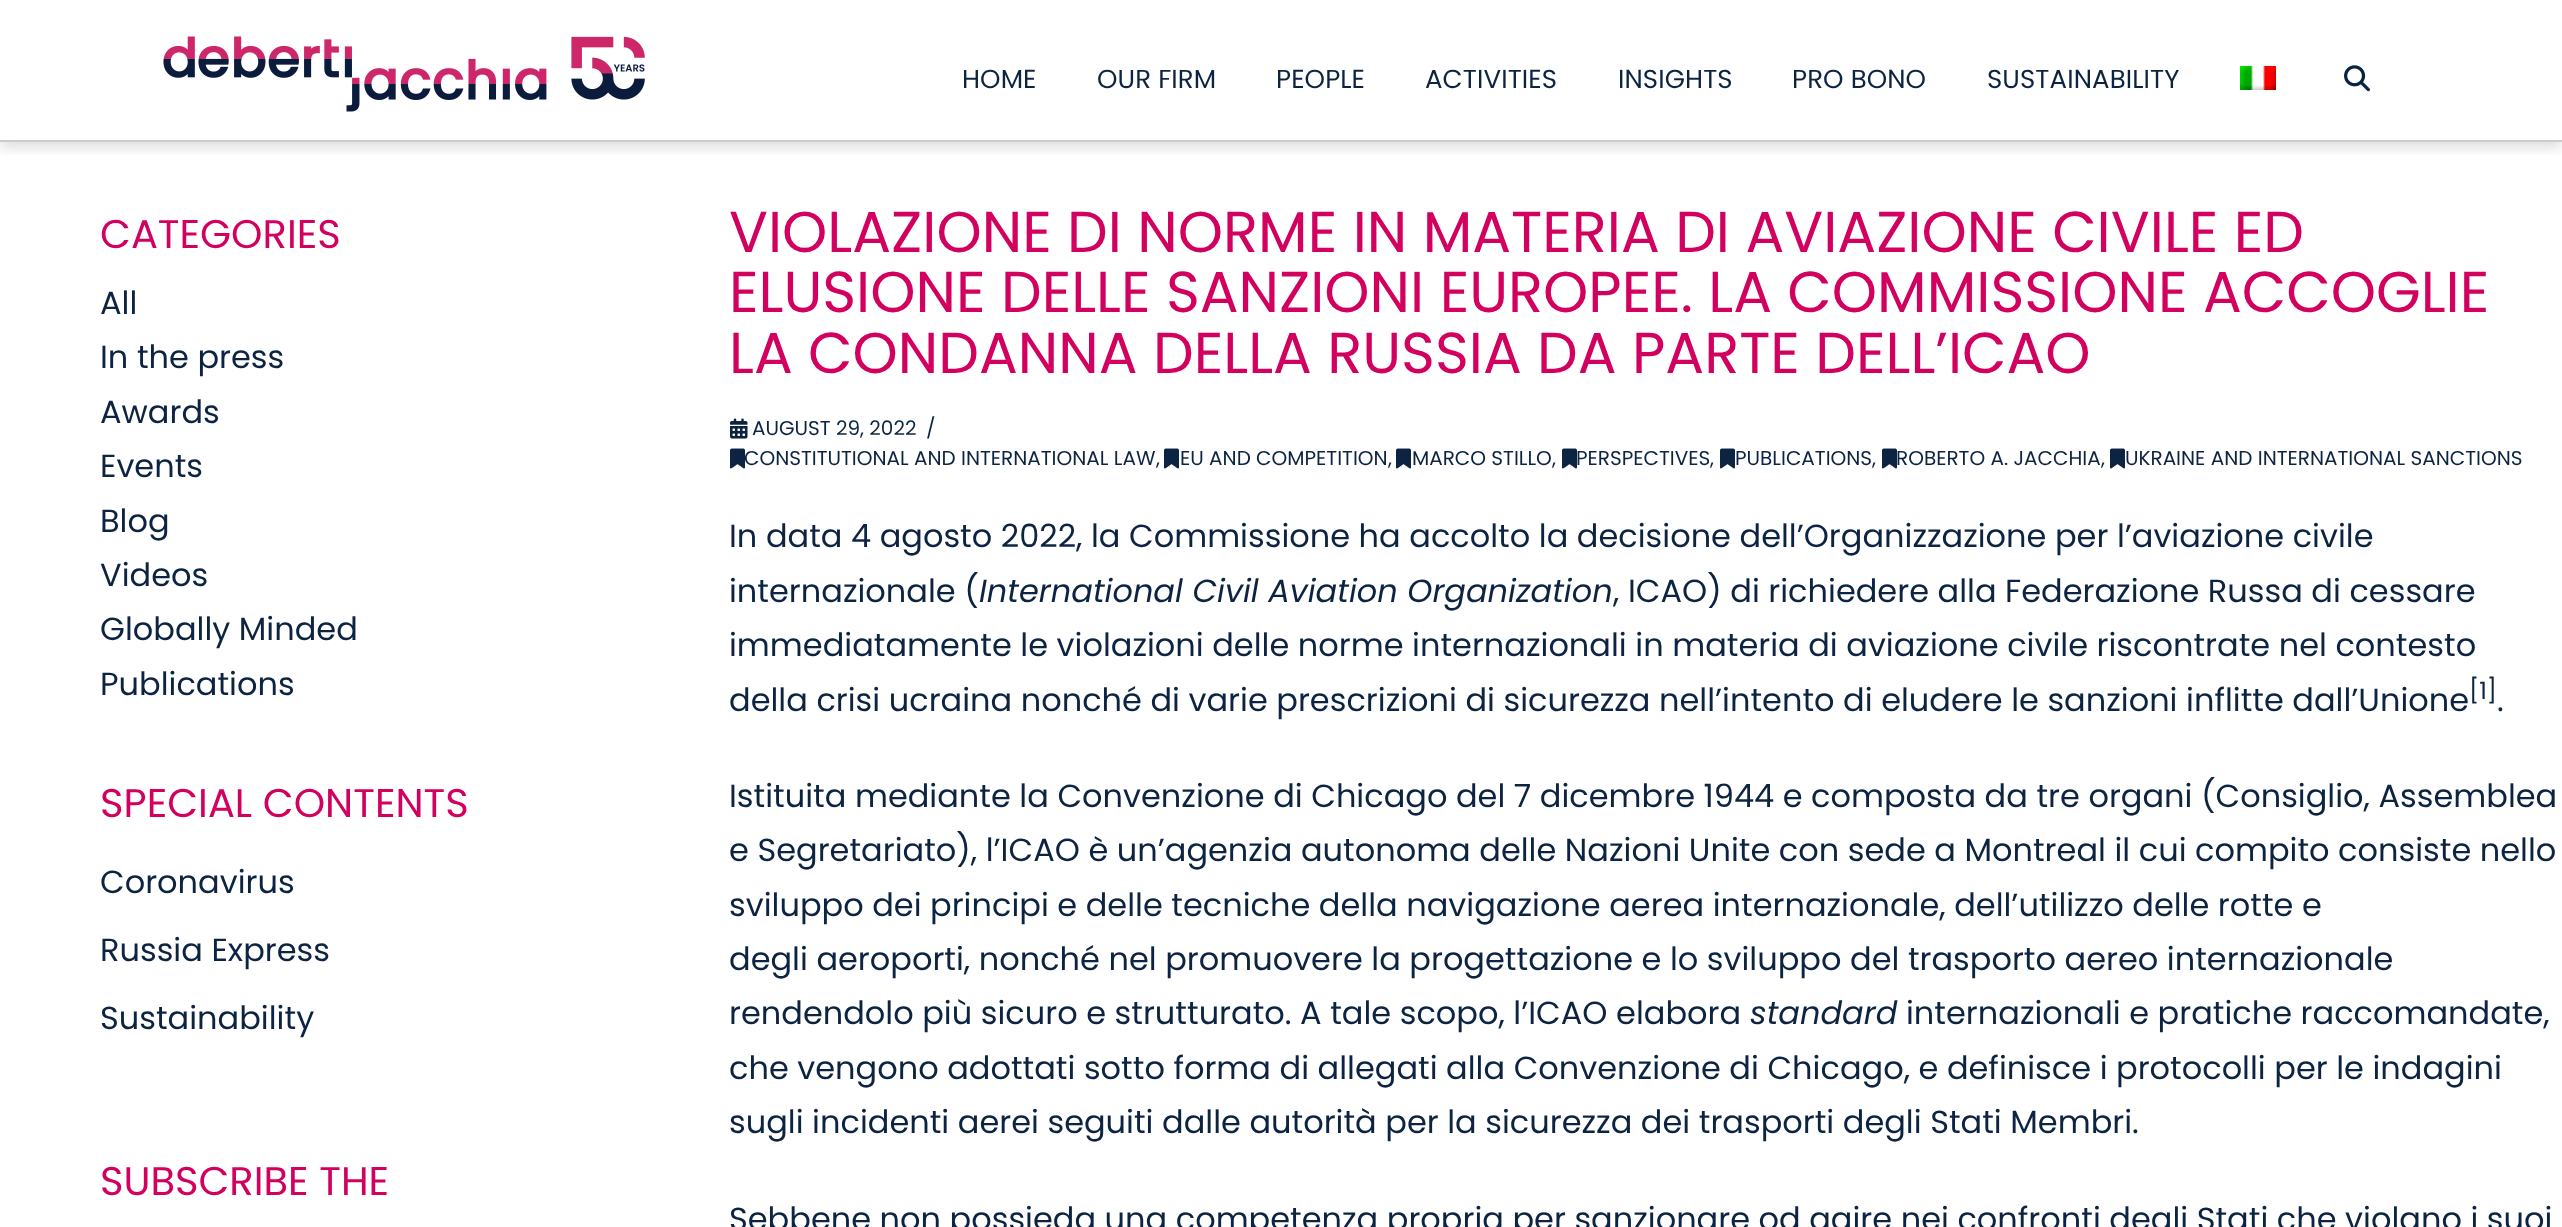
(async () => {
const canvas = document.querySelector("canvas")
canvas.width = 2562
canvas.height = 1227
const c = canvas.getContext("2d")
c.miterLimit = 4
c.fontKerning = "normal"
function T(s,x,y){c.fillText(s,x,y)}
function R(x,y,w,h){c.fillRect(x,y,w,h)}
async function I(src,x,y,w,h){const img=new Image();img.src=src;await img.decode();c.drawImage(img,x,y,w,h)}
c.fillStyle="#fff"
R(0,0,2562,1227)
c.save()
c.beginPath()
c.rect(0,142,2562,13)
c.clip()
c.fillStyle="#00000021"
c.filter="blur(7px)"
c.beginPath()
c.rect(0,6,2562,142)
c.fill()
c.filter="none"
c.restore()
c.fillStyle="#ccc"
R(0,140,2562,2)
await I("1.png",163,36,482,76)
c.letterSpacing="0.1px"
c.font="26px Poppins"
c.fillStyle="#0c2341"
T("HOME",962,88)
T("OUR FIRM",1097,88)
T("PEOPLE",1276,88)
T("ACTIVITIES",1425,88)
T("INSIGHTS",1618,88)
T("PRO BONO",1792,88)
T("SUSTAINABILITY",1987,88)
await I("2.png",2240,66,36,24)
await I("3.png",2344,65,26,27)
c.letterSpacing="0px"
c.font="40px Poppins"
c.fillStyle="#d2005e"
T("CATEGORIES",100,248)
c.font="32px Poppins"
c.fillStyle="#0c2341"
T("All",100,314)
T("In the press",100,368)
T("Awards",100,423)
T("Events",100,477)
T("Blog",100,532)
T("Videos",100,586)
T("Globally Minded",100,640)
T("Publications",100,695)
c.font="40px Poppins"
c.fillStyle="#d2005e"
T("SPECIAL CONTENTS",100,817)
c.font="32px Poppins"
c.fillStyle="#0c2341"
T("Coronavirus",100,893)
T("Russia Express",100,961)
T("Sustainability",100,1029)
c.font="40px Poppins"
c.fillStyle="#d2005e"
T("SUBSCRIBE THE",100,1195)
c.font="57.6px Poppins"
T("VIOLAZIONE DI NORME IN MATERIA DI AVIAZIONE CIVILE ED",729,252)
T("ELUSIONE DELLE SANZIONI EUROPEE. LA COMMISSIONE ACCOGLIE",729,312)
T("LA CONDANNA DELLA RUSSIA DA PARTE DELL’ICAO",729,373)
await I("4.png",730,418,18,21)
c.font="20px Poppins"
c.fillStyle="#0c2341"
T("AUGUST 29, 2022",752,435)
T("/",926,435)
await I("5.png",730,448,15,21)
T("CONSTITUTIONAL AND INTERNATIONAL LAW",744,465)
T(",",1156,465)
await I("5.png",1164,448,15,21)
T("EU AND COMPETITION",1180,465)
T(",",1388,465)
await I("5.png",1396,448,15,21)
T("MARCO STILLO",1412,465)
T(",",1552,465)
await I("5.png",1562,448,15,21)
T("PERSPECTIVES",1576,465)
T(",",1710,465)
await I("5.png",1720,448,15,21)
T("PUBLICATIONS",1735,465)
T(",",1872,465)
await I("5.png",1882,448,15,21)
T("ROBERTO A. JACCHIA",1896,465)
T(",",2101,465)
await I("5.png",2110,448,15,21)
T("UKRAINE AND INTERNATIONAL SANCTIONS",2125,465)
c.font="32px Poppins"
T("In data 4 agosto 2022, la Commissione ha accolto la decisione dell’Organizzazione per l’aviazione civile",729,547)
T("internazionale (",729,602)
c.font="italic 32px Poppins"
T("International Civil Aviation Organization",979,602)
c.font="32px Poppins"
T(", ICAO) di richiedere alla Federazione Russa di cessare",1613,602)
T("immediatamente le violazioni delle norme internazionali in materia di aviazione civile riscontrate nel contesto",729,656)
T("della crisi ucraina nonché di varie prescrizioni di sicurezza nell’intento di eludere le sanzioni inflitte dall’Unione",729,711)
c.font="24px Poppins"
T("[1]",2469,699)
c.font="32px Poppins"
T(".",2497,711)
T("Istituita mediante la Convenzione di Chicago del 7 dicembre 1944 e composta da tre organi (Consiglio, Assemblea",729,807)
T("e Segretariato), l’ICAO è un’agenzia autonoma delle Nazioni Unite con sede a Montreal il cui compito consiste nello",729,861)
T("sviluppo dei principi e delle tecniche della navigazione aerea internazionale, dell’utilizzo delle rotte e",729,916)
T("degli aeroporti, nonché nel promuovere la progettazione e lo sviluppo del trasporto aereo internazionale",729,970)
T("rendendolo più sicuro e strutturato. A tale scopo, l’ICAO elabora",729,1024)
c.font="italic 32px Poppins"
T("standard",1750,1024)
c.font="32px Poppins"
T("internazionali e pratiche raccomandate,",1906,1024)
T("che vengono adottati sotto forma di allegati alla Convenzione di Chicago, e definisce i protocolli per le indagini",729,1079)
T("sugli incidenti aerei seguiti dalle autorità per la sicurezza dei trasporti degli Stati Membri.",729,1133)
T("Sebbene non possieda una competenza propria per sanzionare od agire nei confronti degli Stati che violano i suoi",729,1230)
})()
